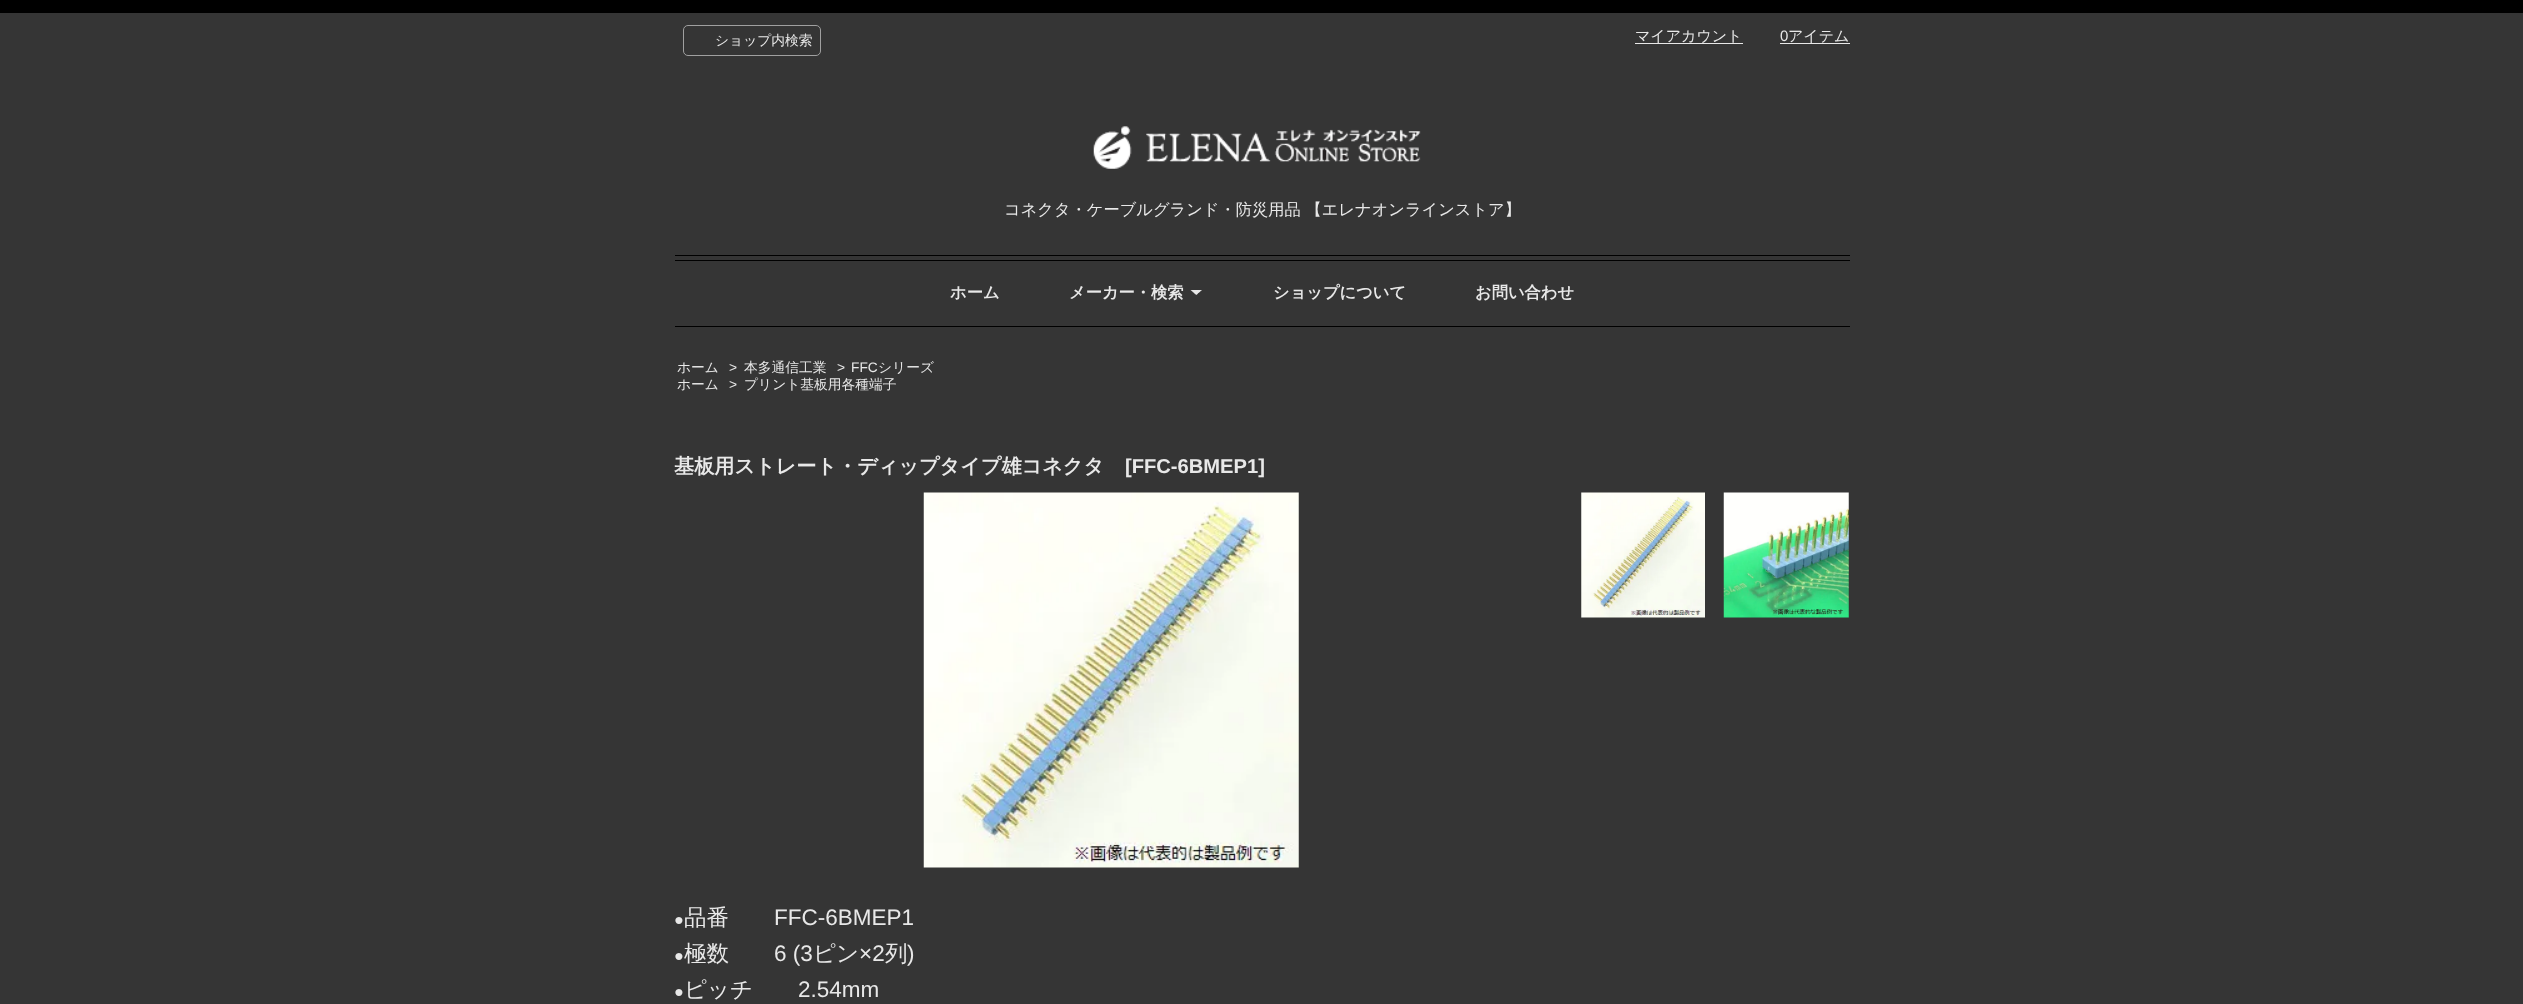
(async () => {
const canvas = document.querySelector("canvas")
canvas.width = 2523
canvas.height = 1004
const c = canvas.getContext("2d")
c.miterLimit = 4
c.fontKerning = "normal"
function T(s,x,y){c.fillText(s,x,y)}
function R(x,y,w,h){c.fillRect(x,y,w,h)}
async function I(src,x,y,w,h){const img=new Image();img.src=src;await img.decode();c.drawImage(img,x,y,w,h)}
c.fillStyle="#353535"
R(0,0,2523,1004)
c.fillStyle="#000"
R(0,0,2523,13)
c.beginPath()
c.roundRect(683.5,25.5,137,30,4.5)
c.strokeStyle="#a0a0a0"
c.stroke()
c.font="500 13.75px WenQuanYi Zen Hei"
c.fillStyle="#e8e8e8"
T("ショップ内検索",715,45)
c.font="500 15px WenQuanYi Zen Hei"
T("マイアカウント",1635,41)
R(1635,43,108,1)
c.font="15px Liberation Sans"
T("0",1780,41)
R(1780,43,70,1)
c.font="500 15px WenQuanYi Zen Hei"
T("アイテム",1788,41)
c.fillStyle="#000"
R(675,255,1175,1)
await I("1.png",1093,126,328,43)
c.font="500 16.25px WenQuanYi Zen Hei"
c.fillStyle="#e8e8e8"
T("コネクタ・ケーブルグランド・防災用品 【エレナオンラインストア】",1004,215)
c.fillStyle="#000"
R(675,260,1175,1)
R(675,326,1175,1)
c.font="bold 16.25px WenQuanYi Zen Hei"
c.fillStyle="#e8e8e8"
T("ホーム",950,298)
T("メーカー・検索",1069,298)
await I("2.png",1190,290,12,5)
T("ショップについて",1273,298)
T("お問い合わせ",1475,298)
c.font="500 13.75px WenQuanYi Zen Hei"
T("ホーム",677,372)
c.font="13.75px Liberation Sans"
T(">",729,372)
c.font="500 13.75px WenQuanYi Zen Hei"
T("本多通信工業",744,372)
c.font="13.75px Liberation Sans"
T(">",837,372)
T("FFC",851,372)
c.font="500 13.75px WenQuanYi Zen Hei"
T("シリーズ",878,372)
T("ホーム",677,389)
c.font="13.75px Liberation Sans"
T(">",729,389)
c.font="500 13.75px WenQuanYi Zen Hei"
T("プリント基板用各種端子",744,389)
c.font="bold 20.15px WenQuanYi Zen Hei"
T("基板用ストレート・ディップタイプ雄コネクタ",674,473)
c.font="bold 20.15px Liberation Sans"
T("[FFC-6BMEP1]",1125,473)
await I("3.png",923,492,376,376)
await I("4.png",1581,492,124,126)
await I("5.png",1723,492,126,126)
c.font="16.25px Liberation Sans"
T("●",674,925)
c.font="500 22.5px WenQuanYi Zen Hei"
T("品番",684,925)
c.font="22.5px Liberation Sans"
T("FFC-6BMEP1",774,925)
c.font="16.25px Liberation Sans"
T("●",674,961)
c.font="500 22.5px WenQuanYi Zen Hei"
T("極数",684,961)
c.font="22.5px Liberation Sans"
T("6 (3",774,961)
c.font="500 22.5px WenQuanYi Zen Hei"
T("ピン",813,961)
c.font="22.5px Liberation Sans"
T("×2",859,961)
c.font="500 22.5px WenQuanYi Zen Hei"
T("列",885,961)
c.font="22.5px Liberation Sans"
T(")",907,961)
c.font="16.25px Liberation Sans"
T("●",674,997)
c.font="500 22.5px WenQuanYi Zen Hei"
T("ピッチ",684,997)
c.font="22.5px Liberation Sans"
T("2.54mm",798,997)
})()
